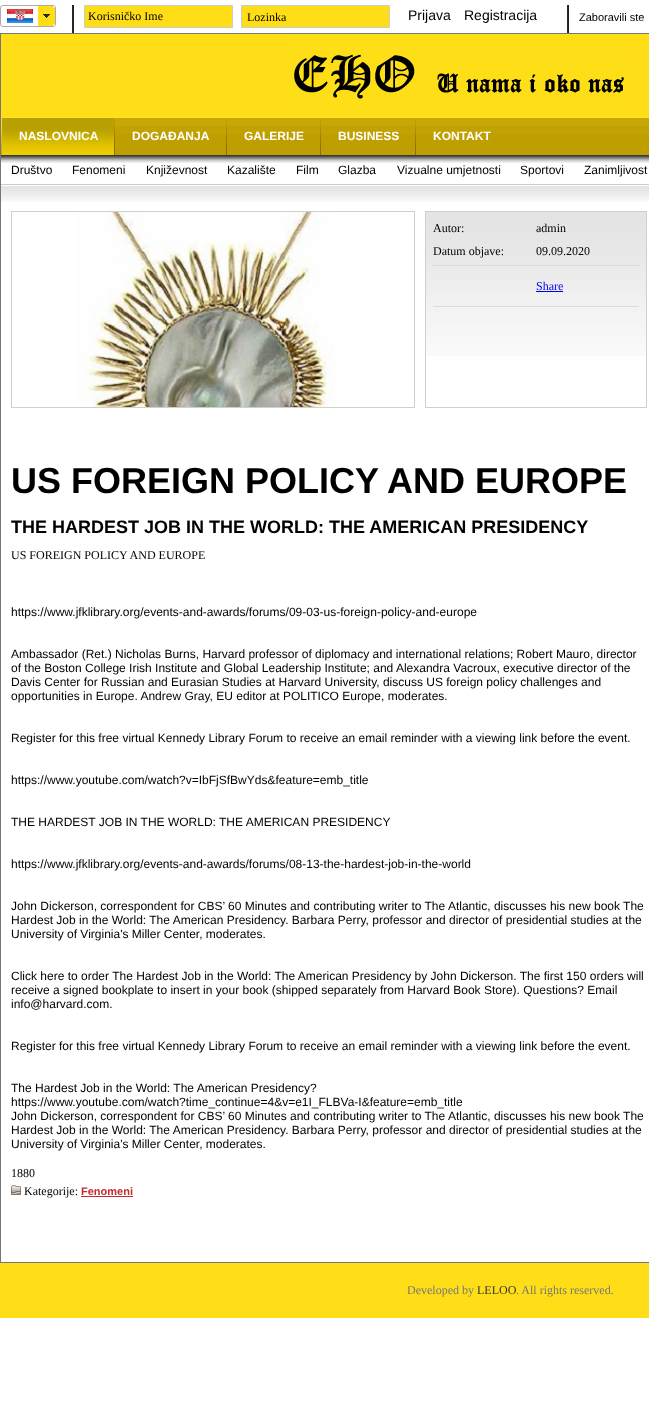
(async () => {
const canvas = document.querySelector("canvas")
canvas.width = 649
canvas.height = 1428
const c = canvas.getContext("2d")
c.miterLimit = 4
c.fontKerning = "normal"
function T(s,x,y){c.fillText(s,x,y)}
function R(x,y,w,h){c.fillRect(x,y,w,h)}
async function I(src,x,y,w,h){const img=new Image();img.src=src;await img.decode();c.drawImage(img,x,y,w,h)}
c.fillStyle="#fff"
R(0,0,649,1428)
await I("1.png",72,5,2,28)
await I("2.png",0,5,38,22)
await I("3.png",7,9,26,14)
await I("4.png",38,5,18,22)
await I("1.png",567,5,2,28)
c.fillStyle="#ffde17"
c.beginPath()
c.rect(84.5,5.5,148,22)
c.fill()
c.strokeStyle="#ccc"
c.stroke()
c.font="12px Liberation Serif"
c.fillStyle="#000"
T("Korisničko Ime",88,20)
c.fillStyle="#ffde17"
c.beginPath()
c.rect(241.5,5.5,148,22)
c.fill()
c.stroke()
c.font="14px Liberation Sans"
c.fillStyle="#000"
T("Prijava",408,20)
T("Registracija",464,20)
c.font="12px Liberation Serif"
T("Lozinka",247,21)
c.font="11px Liberation Sans"
T("Zaboravili ste",579,21)
c.fillStyle="#777"
R(0,33,649,1)
R(0,33,1,1229)
c.fillStyle="#ffde17"
R(1,34,648,83)
await I("5.png",284,34,350,83)
await I("6.png",1,117,648,38)
await I("7.png",1,118,2,37)
await I("8.png",3,118,111,37)
c.font="bold 12px Liberation Sans"
c.fillStyle="#fff"
T("NASLOVNICA",19,140)
await I("9.png",114,118,1,37)
T("DOGAĐANJA",132,140)
await I("9.png",226,118,1,37)
T("GALERIJE",244,140)
await I("9.png",320,118,1,37)
T("BUSINESS",338,140)
await I("9.png",415,118,1,37)
T("KONTAKT",433,140)
await I("10.png",1,155,648,8)
c.fillStyle="#ccc"
R(1,184,648,1)
c.font="12px Liberation Sans"
c.fillStyle="#000"
T("Društvo",11,174)
T("Fenomeni",72,174)
T("Književnost",146,174)
T("Kazalište",227,174)
T("Film",296,174)
T("Glazba",338,174)
T("Vizualne umjetnosti",397,174)
T("Sportovi",520,174)
T("Zanimljivost",584,174)
await I("11.png",1,186,648,16)
c.strokeStyle="#cfcfcf"
c.strokeRect(11.5,211.5,403,196)
await I("12.png",76,212,259,195)
await I("13.png",426,212,220,144)
c.strokeRect(425.5,211.5,221,196)
c.font="12px Liberation Serif"
T("Autor:",433,232)
T("admin",536,232)
c.fillStyle="#dbdbdb"
R(433,265,206,1)
c.fillStyle="#000"
T("Datum objave:",433,255)
T("09.09.2020",536,255)
c.fillStyle="#00e"
T("Share",536,290)
R(536,291,27,1)
c.fillStyle="#dbdbdb"
R(433,306,206,1)
c.font="bold 36px Liberation Sans"
c.fillStyle="#000"
T("US FOREIGN POLICY AND EUROPE",11,493)
c.font="bold 18px Liberation Sans"
T("THE HARDEST JOB IN THE WORLD: THE AMERICAN PRESIDENCY",11,533)
c.font="12px Liberation Serif"
T("US FOREIGN POLICY AND EUROPE",11,559)
c.font="12px Liberation Sans"
T("https://www.jfklibrary.org/events-and-awards/forums/09-03-us-foreign-policy-and-europe",11,616)
T("Ambassador (Ret.) Nicholas Burns, Harvard professor of diplomacy and international relations; Robert Mauro, director",11,658)
T("of the Boston College Irish Institute and Global Leadership Institute; and Alexandra Vacroux, executive director of the",11,672)
T("Davis Center for Russian and Eurasian Studies at Harvard University, discuss US foreign policy challenges and",11,686)
T("opportunities in Europe. Andrew Gray, EU editor at POLITICO Europe, moderates.",11,700)
T("Register for this free virtual Kennedy Library Forum to receive an email reminder with a viewing link before the event.",11,742)
T("https://www.youtube.com/watch?v=IbFjSfBwYds&feature=emb_title",11,784)
T("THE HARDEST JOB IN THE WORLD: THE AMERICAN PRESIDENCY",11,826)
T("https://www.jfklibrary.org/events-and-awards/forums/08-13-the-hardest-job-in-the-world",11,868)
T("John Dickerson, correspondent for CBS’ 60 Minutes and contributing writer to The Atlantic, discusses his new book The",11,910)
T("Hardest Job in the World: The American Presidency. Barbara Perry, professor and director of presidential studies at the",11,924)
T("University of Virginia's Miller Center, moderates.",11,938)
T("Click here to order The Hardest Job in the World: The American Presidency by John Dickerson. The first 150 orders will",11,980)
T("receive a signed bookplate to insert in your book (shipped separately from Harvard Book Store). Questions? Email",11,994)
T("info@harvard.com.",11,1008)
T("Register for this free virtual Kennedy Library Forum to receive an email reminder with a viewing link before the event.",11,1050)
T("The Hardest Job in the World: The American Presidency?",11,1092)
T("https://www.youtube.com/watch?time_continue=4&v=e1I_FLBVa-I&feature=emb_title",11,1106)
T("John Dickerson, correspondent for CBS’ 60 Minutes and contributing writer to The Atlantic, discusses his new book The",11,1120)
T("Hardest Job in the World: The American Presidency. Barbara Perry, professor and director of presidential studies at the",11,1134)
T("University of Virginia's Miller Center, moderates.",11,1148)
c.font="12px Liberation Serif"
T("1880",11,1177)
await I("14.png",11,1185,10,10)
T("Kategorije:",24,1195)
c.font="bold 11px Liberation Sans"
c.fillStyle="#c02b2d"
T("Fenomeni",81,1195)
R(81,1196,52,1)
c.fillStyle="#ffde17"
R(0,1263,649,55)
c.fillStyle="#777"
R(0,1262,649,1)
c.font="12px Liberation Serif"
T("Developed by",407,1294)
c.fillStyle="#333"
T("LELOO",477,1294)
c.fillStyle="#777"
T(". All rights reserved.",516,1294)
})()
